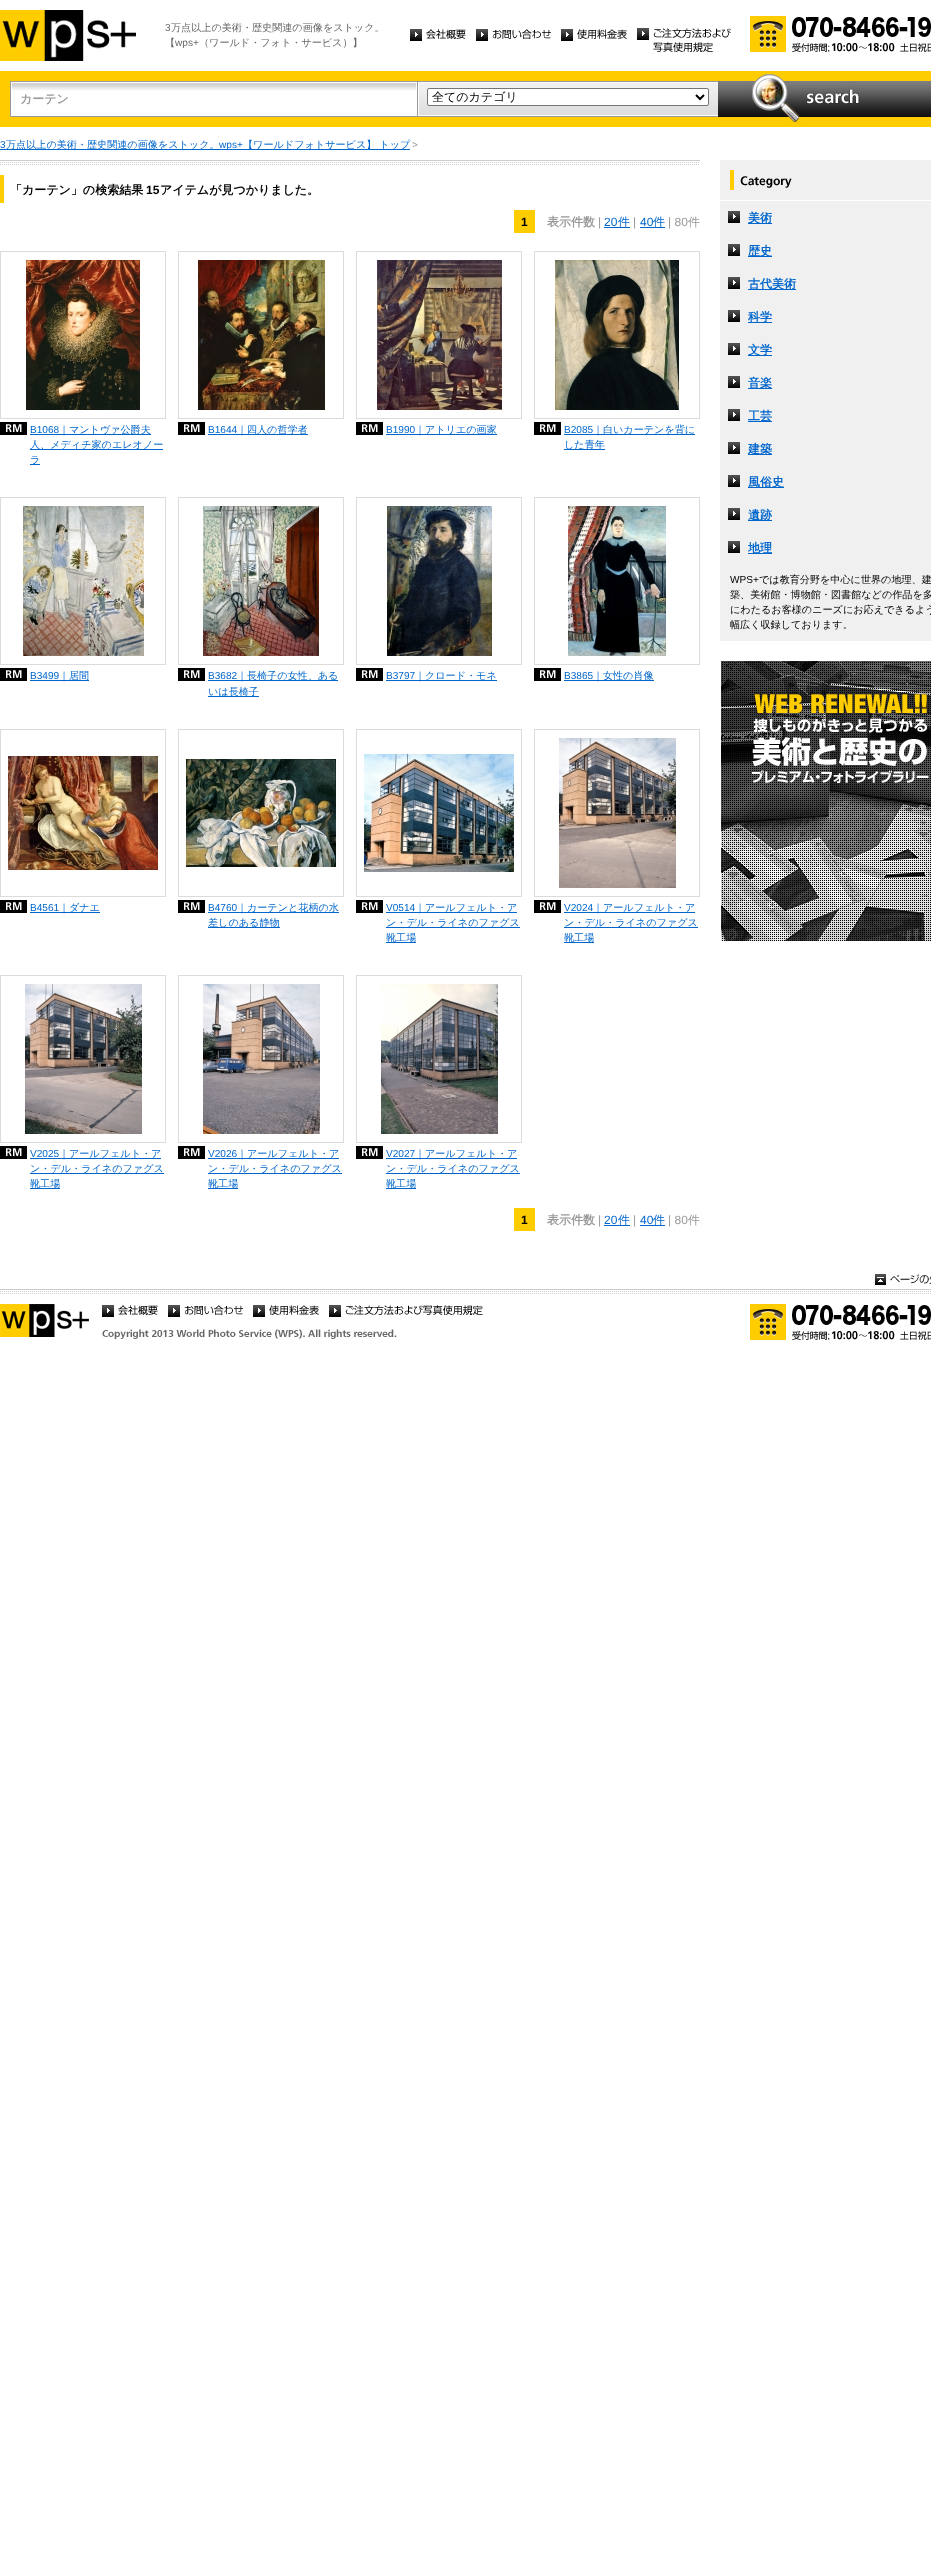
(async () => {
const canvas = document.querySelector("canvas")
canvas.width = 931
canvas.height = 2558
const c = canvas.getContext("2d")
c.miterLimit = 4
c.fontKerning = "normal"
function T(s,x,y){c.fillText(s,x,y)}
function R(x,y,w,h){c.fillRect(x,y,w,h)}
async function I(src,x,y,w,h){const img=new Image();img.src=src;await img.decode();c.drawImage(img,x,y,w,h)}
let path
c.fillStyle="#fff"
R(0,0,931,2558)
await I("1.png",0,10,136,51)
c.font="10.1px Liberation Sans"
c.fillStyle="#666"
T("3",165,31)
c.font="500 10.1px WenQuanYi Zen Hei"
T("万点以上の美術・歴史関連の画像をストック。",171,31)
T("【",165,46)
c.font="10.1px Liberation Sans"
T("wps+",175,46)
c.font="500 10.1px WenQuanYi Zen Hei"
T("（ワールド・フォト・サービス）】",199,46)
await I("2.png",410,29,56,12)
await I("3.png",476,29,75,12)
await I("4.png",561,29,66,12)
await I("5.png",637,28,94,24)
await I("6.png",750,16,181,36)
c.fillStyle="#fc0"
R(0,71,931,56)
await I("7.png",10,81,407,36)
c.font="bold 12px WenQuanYi Zen Hei"
c.fillStyle="#999"
T("カーテン",20,103)
await I("8.png",417,81,301,36)
c.fillStyle="#fff"
c.beginPath()
c.roundRect(427.5,88.5,281,17,1.5)
c.fill()
c.strokeStyle="#767676"
c.stroke()
path = new Path2D("M696 95l4 4l4-4")
c.strokeStyle="#000"
c.lineWidth=2
c.stroke(path)
c.font="500 12px WenQuanYi Zen Hei"
c.fillStyle="#000"
T("全てのカテゴリ",432,101)
await I("9.png",718,74,213,48)
c.font="10.1px Liberation Sans"
c.fillStyle="#06c"
T("3",0,148)
R(0,149,410,1)
c.font="500 10.1px WenQuanYi Zen Hei"
T("万点以上の美術・歴史関連の画像をストック。",6,148)
c.font="10.1px Liberation Sans"
T("wps+",219,148)
c.font="500 10.1px WenQuanYi Zen Hei"
T("【ワールドフォトサービス】 トップ",243,148)
c.font="10.1px Liberation Sans"
c.fillStyle="#999"
T(">",412,148)
await I("10.png",0,160,700,5)
c.fillStyle="#fc0"
R(0,175,4,28)
c.font="bold 12px WenQuanYi Zen Hei"
c.fillStyle="#000"
T("「カーテン」の検索結果",10,194)
c.font="bold 12px Liberation Sans"
T("15",146,194)
c.font="bold 12px WenQuanYi Zen Hei"
T("アイテムが見つかりました。",160,194)
c.fillStyle="#fc0"
R(514,210,21,23)
c.font="bold 12px Liberation Sans"
c.fillStyle="#000"
T("1",521,226)
c.font="bold 12px WenQuanYi Zen Hei"
c.fillStyle="#999"
T("表示件数",547,226)
c.font="12px Liberation Sans"
T("|",598,226)
c.fillStyle="#06c"
T("20",604,226)
R(604,227,26,1)
c.font="500 12px WenQuanYi Zen Hei"
T("件",618,226)
c.font="12px Liberation Sans"
c.fillStyle="#999"
T("|",633,226)
c.fillStyle="#06c"
T("40",640,226)
R(640,227,25,1)
c.font="500 12px WenQuanYi Zen Hei"
T("件",653,226)
c.font="12px Liberation Sans"
c.fillStyle="#999"
T("| 80",668,226)
c.font="500 12px WenQuanYi Zen Hei"
T("件",688,226)
c.fillStyle="#dcdcdc"
R(0,251,166,1)
R(165,251,1,168)
R(0,418,166,1)
R(0,251,1,168)
await I("11.png",26,260,114,150)
await I("12.png",0,422,27,13)
c.font="10.1px Liberation Sans"
c.fillStyle="#06c"
T("B1068",30,433)
R(30,434,121,1)
c.font="500 10.1px WenQuanYi Zen Hei"
T("｜マントヴァ公爵夫",59,433)
R(30,449,133,1)
T("人、メディチ家のエレオノー",30,448)
R(30,464,10,1)
T("ラ",30,463)
c.fillStyle="#dcdcdc"
R(178,251,166,1)
R(343,251,1,168)
R(178,418,166,1)
R(178,251,1,168)
await I("13.png",198,260,127,150)
await I("12.png",178,422,27,13)
c.font="10.1px Liberation Sans"
c.fillStyle="#06c"
T("B1644",208,433)
R(208,434,100,1)
c.font="500 10.1px WenQuanYi Zen Hei"
T("｜四人の哲学者",237,433)
c.fillStyle="#dcdcdc"
R(356,251,166,1)
R(521,251,1,168)
R(356,418,166,1)
R(356,251,1,168)
await I("14.png",377,260,125,150)
await I("12.png",356,422,27,13)
c.font="10.1px Liberation Sans"
c.fillStyle="#06c"
T("B1990",386,433)
R(386,434,111,1)
c.font="500 10.1px WenQuanYi Zen Hei"
T("｜アトリエの画家",415,433)
c.fillStyle="#dcdcdc"
R(534,251,166,1)
R(699,251,1,168)
R(534,418,166,1)
R(534,251,1,168)
await I("15.png",555,260,124,150)
await I("12.png",534,422,27,13)
c.font="10.1px Liberation Sans"
c.fillStyle="#06c"
T("B2085",564,433)
R(564,434,131,1)
c.font="500 10.1px WenQuanYi Zen Hei"
T("｜白いカーテンを背に",593,433)
R(564,449,41,1)
T("した青年",564,448)
c.fillStyle="#dcdcdc"
R(0,497,166,1)
R(165,497,1,168)
R(0,664,166,1)
R(0,497,1,168)
await I("16.png",23,506,121,150)
await I("12.png",0,668,27,13)
c.font="10.1px Liberation Sans"
c.fillStyle="#06c"
T("B3499",30,679)
R(30,680,59,1)
c.font="500 10.1px WenQuanYi Zen Hei"
T("｜居間",59,679)
c.fillStyle="#dcdcdc"
R(178,497,166,1)
R(343,497,1,168)
R(178,664,166,1)
R(178,497,1,168)
await I("17.png",203,506,116,150)
await I("12.png",178,668,27,13)
c.font="10.1px Liberation Sans"
c.fillStyle="#06c"
T("B3682",208,679)
R(208,680,130,1)
c.font="500 10.1px WenQuanYi Zen Hei"
T("｜長椅子の女性、ある",237,679)
R(208,696,51,1)
T("いは長椅子",208,695)
c.fillStyle="#dcdcdc"
R(356,497,166,1)
R(521,497,1,168)
R(356,664,166,1)
R(356,497,1,168)
await I("18.png",387,506,105,150)
await I("12.png",356,668,27,13)
c.font="10.1px Liberation Sans"
c.fillStyle="#06c"
T("B3797",386,679)
R(386,680,111,1)
c.font="500 10.1px WenQuanYi Zen Hei"
T("｜クロード・モネ",415,679)
c.fillStyle="#dcdcdc"
R(534,497,166,1)
R(699,497,1,168)
R(534,664,166,1)
R(534,497,1,168)
await I("19.png",568,506,98,150)
await I("12.png",534,668,27,13)
c.font="10.1px Liberation Sans"
c.fillStyle="#06c"
T("B3865",564,679)
R(564,680,90,1)
c.font="500 10.1px WenQuanYi Zen Hei"
T("｜女性の肖像",593,679)
c.fillStyle="#dcdcdc"
R(0,729,166,1)
R(165,729,1,168)
R(0,896,166,1)
R(0,729,1,168)
await I("20.png",8,756,150,114)
await I("12.png",0,900,27,13)
c.font="10.1px Liberation Sans"
c.fillStyle="#06c"
T("B4561",30,911)
R(30,912,70,1)
c.font="500 10.1px WenQuanYi Zen Hei"
T("｜ダナエ",59,911)
c.fillStyle="#dcdcdc"
R(178,729,166,1)
R(343,729,1,168)
R(178,896,166,1)
R(178,729,1,168)
await I("21.png",186,759,150,108)
await I("12.png",178,900,27,13)
c.font="10.1px Liberation Sans"
c.fillStyle="#06c"
T("B4760",208,911)
R(208,912,131,1)
c.font="500 10.1px WenQuanYi Zen Hei"
T("｜カーテンと花柄の水",237,911)
R(208,927,72,1)
T("差しのある静物",208,926)
c.fillStyle="#dcdcdc"
R(356,729,166,1)
R(521,729,1,168)
R(356,896,166,1)
R(356,729,1,168)
await I("22.png",364,754,150,118)
await I("12.png",356,900,27,13)
c.font="10.1px Liberation Sans"
c.fillStyle="#06c"
T("V0514",386,911)
R(386,912,131,1)
c.font="500 10.1px WenQuanYi Zen Hei"
T("｜アールフェルト・ア",415,911)
R(386,927,134,1)
T("ン・デル・ライネのファグス",386,926)
R(386,942,30,1)
T("靴工場",386,941)
c.fillStyle="#dcdcdc"
R(534,729,166,1)
R(699,729,1,168)
R(534,896,166,1)
R(534,729,1,168)
await I("23.png",559,738,117,150)
await I("12.png",534,900,27,13)
c.font="10.1px Liberation Sans"
c.fillStyle="#06c"
T("V2024",564,911)
R(564,912,131,1)
c.font="500 10.1px WenQuanYi Zen Hei"
T("｜アールフェルト・ア",593,911)
R(564,927,134,1)
T("ン・デル・ライネのファグス",564,926)
R(564,942,30,1)
T("靴工場",564,941)
c.fillStyle="#dcdcdc"
R(0,975,166,1)
R(165,975,1,168)
R(0,1142,166,1)
R(0,975,1,168)
await I("24.png",25,984,117,150)
await I("12.png",0,1146,27,13)
c.font="10.1px Liberation Sans"
c.fillStyle="#06c"
T("V2025",30,1157)
R(30,1158,131,1)
c.font="500 10.1px WenQuanYi Zen Hei"
T("｜アールフェルト・ア",59,1157)
R(30,1173,134,1)
T("ン・デル・ライネのファグス",30,1172)
R(30,1188,30,1)
T("靴工場",30,1187)
c.fillStyle="#dcdcdc"
R(178,975,166,1)
R(343,975,1,168)
R(178,1142,166,1)
R(178,975,1,168)
await I("25.png",203,984,117,150)
await I("12.png",178,1146,27,13)
c.font="10.1px Liberation Sans"
c.fillStyle="#06c"
T("V2026",208,1157)
R(208,1158,131,1)
c.font="500 10.1px WenQuanYi Zen Hei"
T("｜アールフェルト・ア",237,1157)
R(208,1173,134,1)
T("ン・デル・ライネのファグス",208,1172)
R(208,1188,30,1)
T("靴工場",208,1187)
c.fillStyle="#dcdcdc"
R(356,975,166,1)
R(521,975,1,168)
R(356,1142,166,1)
R(356,975,1,168)
await I("26.png",381,984,117,150)
await I("12.png",356,1146,27,13)
c.font="10.1px Liberation Sans"
c.fillStyle="#06c"
T("V2027",386,1157)
R(386,1158,131,1)
c.font="500 10.1px WenQuanYi Zen Hei"
T("｜アールフェルト・ア",415,1157)
R(386,1173,134,1)
T("ン・デル・ライネのファグス",386,1172)
R(386,1188,30,1)
T("靴工場",386,1187)
c.fillStyle="#fc0"
R(514,1208,21,23)
c.font="bold 12px Liberation Sans"
c.fillStyle="#000"
T("1",521,1224)
c.font="bold 12px WenQuanYi Zen Hei"
c.fillStyle="#999"
T("表示件数",547,1224)
c.font="12px Liberation Sans"
T("|",598,1224)
c.fillStyle="#06c"
T("20",604,1224)
R(604,1225,26,1)
c.font="500 12px WenQuanYi Zen Hei"
T("件",618,1224)
c.font="12px Liberation Sans"
c.fillStyle="#999"
T("|",633,1224)
c.fillStyle="#06c"
T("40",640,1224)
R(640,1225,25,1)
c.font="500 12px WenQuanYi Zen Hei"
T("件",653,1224)
c.font="12px Liberation Sans"
c.fillStyle="#999"
T("| 80",668,1224)
c.font="500 12px WenQuanYi Zen Hei"
T("件",688,1224)
await I("27.png",720,160,211,40)
c.fillStyle="#f0f0f0"
R(720,201,211,440)
await I("28.png",728,211,12,12)
c.fillStyle="#06c"
R(748,223,24,1)
c.font="bold 12px WenQuanYi Zen Hei"
T("美術",748,222)
await I("28.png",728,244,12,12)
R(748,256,24,1)
T("歴史",748,255)
await I("28.png",728,277,12,12)
R(748,289,48,1)
T("古代美術",748,288)
await I("28.png",728,310,12,12)
R(748,322,24,1)
T("科学",748,321)
await I("28.png",728,343,12,12)
R(748,355,24,1)
T("文学",748,354)
await I("28.png",728,376,12,12)
R(748,388,24,1)
T("音楽",748,387)
await I("28.png",728,409,12,12)
R(748,421,24,1)
T("工芸",748,420)
await I("28.png",728,442,12,12)
R(748,454,24,1)
T("建築",748,453)
await I("28.png",728,475,12,12)
R(748,487,36,1)
T("風俗史",748,486)
await I("28.png",728,508,12,12)
R(748,520,24,1)
T("遺跡",748,519)
await I("28.png",728,541,12,12)
R(748,553,24,1)
T("地理",748,552)
c.font="10.1px Liberation Sans"
c.fillStyle="#000"
T("WPS+",730,583)
c.font="500 10.1px WenQuanYi Zen Hei"
T("では教育分野を中心に世界の地理、建",759,583)
T("築、美術館・博物館・図書館などの作品を多",730,598)
T("にわたるお客様のニーズにお応えできるよう",730,613)
T("幅広く収録しております。",730,628)
await I("29.png",721,661,210,280)
await I("30.png",0,1289,931,5)
await I("31.png",875,1274,56,11)
await I("32.png",0,1304,89,33)
await I("2.png",102,1305,56,12)
await I("3.png",168,1305,75,12)
await I("4.png",253,1305,66,12)
await I("33.png",329,1305,154,12)
await I("6.png",750,1304,181,36)
await I("34.png",102,1329,295,10)
})()
